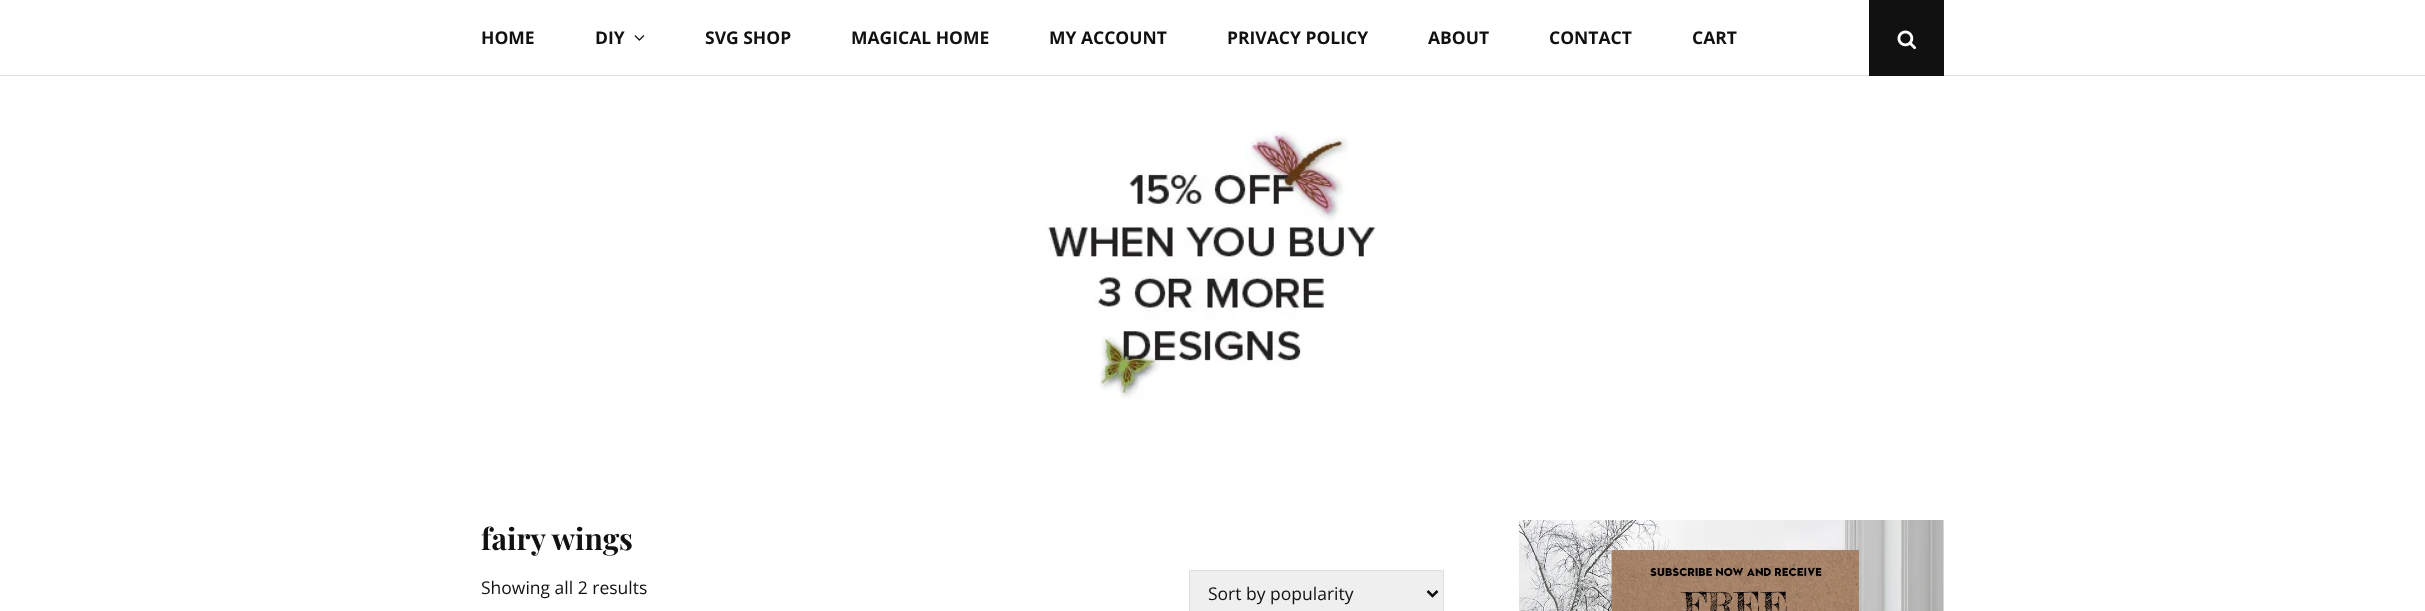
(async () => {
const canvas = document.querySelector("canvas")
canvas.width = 2425
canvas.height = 611
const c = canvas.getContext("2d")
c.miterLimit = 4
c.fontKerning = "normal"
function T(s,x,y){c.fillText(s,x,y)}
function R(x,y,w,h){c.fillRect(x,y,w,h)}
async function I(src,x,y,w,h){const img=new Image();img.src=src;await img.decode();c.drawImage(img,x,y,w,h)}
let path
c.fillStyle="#fff"
R(0,0,2425,611)
c.fillStyle="#dedede"
R(0,75,2425,1)
c.font="bold 17.5px Open Sans"
c.fillStyle="#111"
T("HOME",481,44)
T("DIY",595,44)
await I("1.png",634,35,11,6)
T("SVG SHOP",705,44)
T("MAGICAL HOME",851,44)
T("MY ACCOUNT",1049,44)
T("PRIVACY POLICY",1227,44)
T("ABOUT",1428,44)
T("CONTACT",1549,44)
T("CART",1692,44)
R(1869,0,75,76)
await I("2.png",1897,30,20,20)
await I("3.png",1045,131,331,268)
c.font="bold 30px Playfair Display"
T("fairy wings",481,550)
c.font="17.5px Open Sans"
T("Showing all 2 results",481,594)
c.fillStyle="#efefef"
c.beginPath()
c.rect(1189.5,570.5,254,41)
c.fill()
c.strokeStyle="#dedede"
c.stroke()
path = new Path2D("M1427.5 591l5 5l5-5")
c.strokeStyle="#111"
c.lineWidth=2.5
c.stroke(path)
c.fillStyle="#111"
T("Sort by popularity",1208,600)
await I("4.png",1518,520,426,91)
})()
